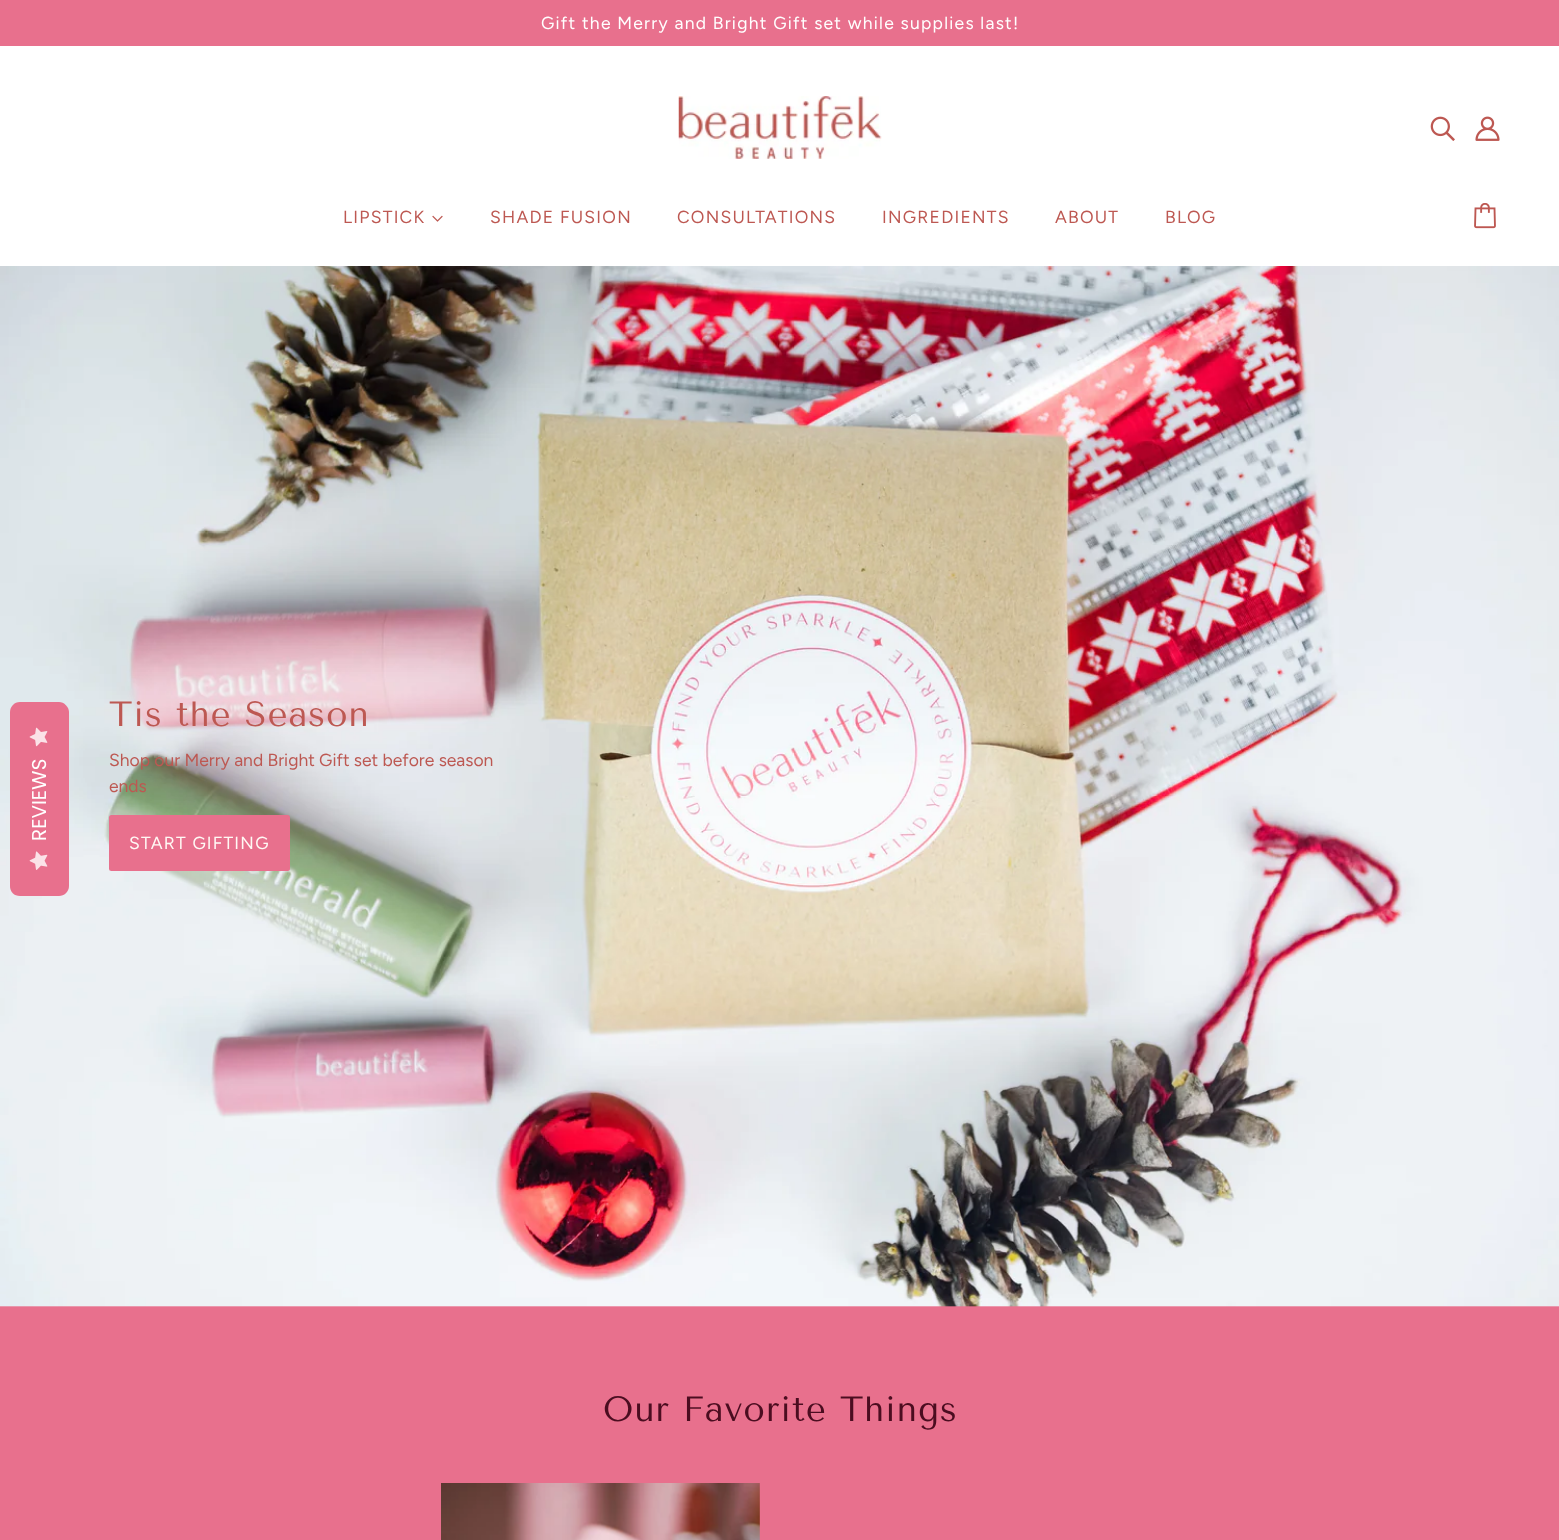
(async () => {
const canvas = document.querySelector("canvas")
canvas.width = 1559
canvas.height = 1540
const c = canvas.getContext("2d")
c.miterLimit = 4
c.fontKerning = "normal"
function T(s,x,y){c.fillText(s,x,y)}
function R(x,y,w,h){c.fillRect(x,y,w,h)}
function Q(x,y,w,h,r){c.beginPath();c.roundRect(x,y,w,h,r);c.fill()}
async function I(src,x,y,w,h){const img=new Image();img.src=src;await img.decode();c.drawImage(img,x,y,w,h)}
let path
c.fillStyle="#fff"
R(0,0,1559,1540)
c.fillStyle="#e8708d"
R(0,1306,1559,234)
await I("8.png",0,266,1559,1041)
path = new Path2D("M10 886v-174c0-5 4-10 10-10h39c5 0 10 5 10 10v174c0 6-5 10-10 10h-39c-6 0-10-4-10-10z")
c.fill(path)
await I("1.png",29,727,19,20)
c.font="20px Poppins"
c.fillStyle="#fff"
c.save()
c.translate(46,841)
c.rotate(-90 * Math.PI / 180)
c.fillText("REVIEWS",0,0)
c.restore()
await I("2.png",29,851,19,19)
c.fillStyle="#e8708d"
R(0,0,1559,46)
c.letterSpacing="1.25px"
c.font="17.5px Figtree"
c.fillStyle="#fff"
T("Gift the Merry and Bright Gift set while supplies last!",541,29)
await I("3.png",678,96,204,63)
await I("4.png",1430,116,25,25)
await I("5.png",1475,116,25,25)
c.fillStyle="#bd5852"
T("LIPSTICK",343,223)
await I("6.png",432,215,11,7)
T("SHADE FUSION",490,223)
T("CONSULTATIONS",677,223)
T("INGREDIENTS",882,223)
T("ABOUT",1055,223)
T("BLOG",1165,223)
await I("7.png",1474,203,22,26)
c.letterSpacing="0.9px"
c.font="35px Tenor Sans"
T("Tis the Season",109,726)
c.letterSpacing="0px"
c.font="17.5px Figtree"
T("Shop our Merry and Bright Gift set before season",109,766)
T("ends",109,792)
c.fillStyle="#e8708d"
Q(109,815,181,56,2.5)
c.letterSpacing="1.25px"
c.fillStyle="#fff9f5"
T("START GIFTING",129,849)
c.letterSpacing="0.9px"
c.font="35px Tenor Sans"
c.fillStyle="#4b0d20"
T("Our Favorite Things",603,1421)
await I("9.png",441,1483,319,57)
})()
